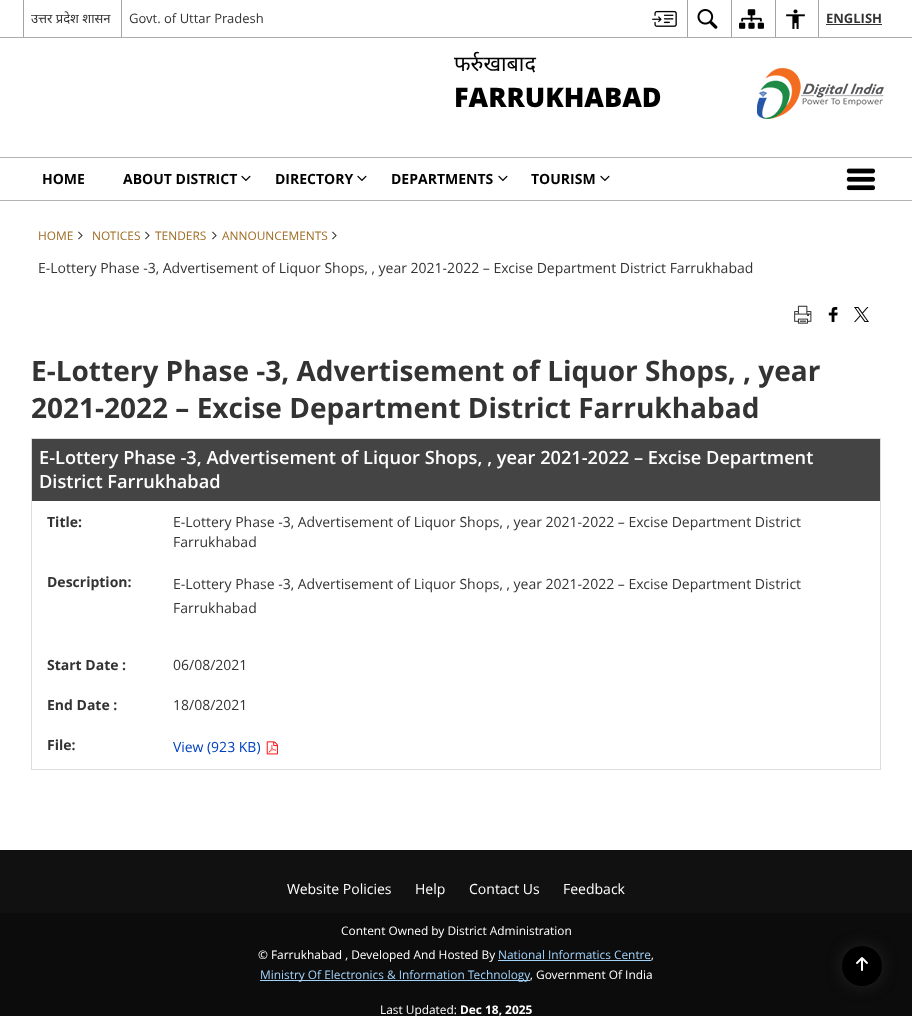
(async () => {
const canvas = document.querySelector("canvas")
canvas.width = 912
canvas.height = 1016
const c = canvas.getContext("2d")
c.miterLimit = 4
c.fontKerning = "normal"
function T(s,x,y){c.fillText(s,x,y)}
function R(x,y,w,h){c.fillRect(x,y,w,h)}
async function I(src,x,y,w,h){const img=new Image();img.src=src;await img.decode();c.drawImage(img,x,y,w,h)}
c.fillStyle="#fff"
R(0,0,912,1016)
c.fillStyle="#ababab"
R(0,37,912,1)
c.fillStyle="#a3a3a3"
R(23,0,1,37)
c.font="13px Noto Sans"
c.fillStyle="#333"
T("उत्तर प्रदेश शासन",31,23)
c.fillStyle="#a3a3a3"
R(121,0,1,37)
c.font="13px Open Sans"
c.fillStyle="#333"
T("Govt. of Uttar Pradesh",129,23)
await I("1.png",652,10,25,17)
c.fillStyle="#a3a3a3"
R(687,0,1,37)
await I("2.png",697,9,21,20)
R(731,0,1,37)
await I("3.png",739,9,25,20)
R(775,0,1,37)
await I("4.png",786,9,19,20)
R(818,0,1,37)
c.font="bold 13px Open Sans"
c.fillStyle="#333"
T("ENGLISH",826,23)
R(826,24,56,1)
c.font="21.5px Noto Sans"
c.fillStyle="#000"
T("फर्रुखाबाद",454,71)
c.font="800 27px Open Sans"
T("FARRUKHABAD",454,107)
await I("5.png",757,68,127,51)
c.fillStyle="#b3b3b3"
R(0,157,912,1)
R(0,200,912,1)
c.font="bold 14px Open Sans"
c.fillStyle="#000"
T("HOME",42,184)
T("ABOUT DISTRICT",123,184)
await I("6.png",241,175,10,7)
T("DIRECTORY",275,184)
await I("6.png",357,175,10,7)
T("DEPARTMENTS",391,184)
await I("6.png",498,175,10,7)
T("TOURISM",531,184)
await I("6.png",600,175,10,7)
await I("7.png",846,168,30,23)
c.font="11.9px Open Sans"
c.fillStyle="#9e6b22"
T("HOME",38,240)
await I("8.png",78,231,5,9)
T("NOTICES",92,240)
await I("8.png",145,231,5,9)
T("TENDERS",155,240)
await I("8.png",212,231,5,9)
T("ANNOUNCEMENTS",222,240)
await I("8.png",332,231,5,9)
c.font="14px Open Sans"
c.fillStyle="#333"
T("E-Lottery Phase -3, Advertisement of Liquor Shops, , year 2021-2022 – Excise Department District Farrukhabad",38,273)
await I("9.png",794,305,18,19)
await I("10.png",828,307,10,15)
await I("11.png",854,307,15,15)
c.font="bold 28px Open Sans"
T("E-Lottery Phase -3, Advertisement of Liquor Shops, , year",31,381)
T("2021-2022 – Excise Department District Farrukhabad",31,418)
c.fillStyle="#ddd"
R(31,438,850,1)
R(880,438,1,332)
R(31,769,850,1)
R(31,438,1,332)
c.fillStyle="#444"
R(32,439,848,62)
c.font="600 18.2px Open Sans"
c.fillStyle="#fff"
T("E-Lottery Phase -3, Advertisement of Liquor Shops, , year 2021-2022 – Excise Department",39,464)
T("District Farrukhabad",39,488)
c.font="bold 14px Open Sans"
c.fillStyle="#333"
T("Title:",47,527)
c.font="14px Open Sans"
T("E-Lottery Phase -3, Advertisement of Liquor Shops, , year 2021-2022 – Excise Department District",173,527)
T("Farrukhabad",173,547)
c.font="bold 14px Open Sans"
T("Description:",47,587)
c.font="14px Open Sans"
T("E-Lottery Phase -3, Advertisement of Liquor Shops, , year 2021-2022 – Excise Department District",173,589)
T("Farrukhabad",173,613)
c.font="bold 14px Open Sans"
T("Start Date :",47,670)
c.font="14px Open Sans"
T("06/08/2021",173,670)
c.font="bold 14px Open Sans"
T("End Date :",47,710)
c.font="14px Open Sans"
T("18/08/2021",173,710)
c.font="bold 14px Open Sans"
T("File:",47,750)
c.font="14px Open Sans"
c.fillStyle="#0042bf"
T("View (923 KB)",173,752)
await I("12.png",266,741,12,14)
c.fillStyle="#111"
R(0,850,912,63)
c.fillStyle="#fff"
T("Website Policies",287,894)
T("Help",415,894)
T("Contact Us",469,894)
T("Feedback",563,894)
c.fillStyle="#0c0c0c"
R(0,913,912,103)
c.font="11.9px Open Sans"
c.fillStyle="#fff"
T("Content Owned by District Administration",341,935)
T("© Farrukhabad , Developed And Hosted By",258,959)
c.fillStyle="#a3d2f9"
T("National Informatics Centre",498,959)
R(498,960,153,1)
c.fillStyle="#fff"
T(",",651,959)
c.fillStyle="#a3d2f9"
R(260,980,270,1)
T("Ministry Of Electronics & Information Technology",260,979)
c.fillStyle="#fff"
T(", Government Of India",530,979)
T("Last Updated:",380,1014)
c.font="bold 11.9px Open Sans"
T("Dec 18, 2025",460,1014)
c.fillStyle="#3c3c3c"
c.filter="blur(9.5px)"
c.beginPath()
c.roundRect(847,951,30,30,15)
c.fill()
c.filter="none"
c.fillStyle="#000"
c.beginPath()
c.arc(862,966,20,0,7)
c.fill()
await I("13.png",856,957,12,14)
})()
